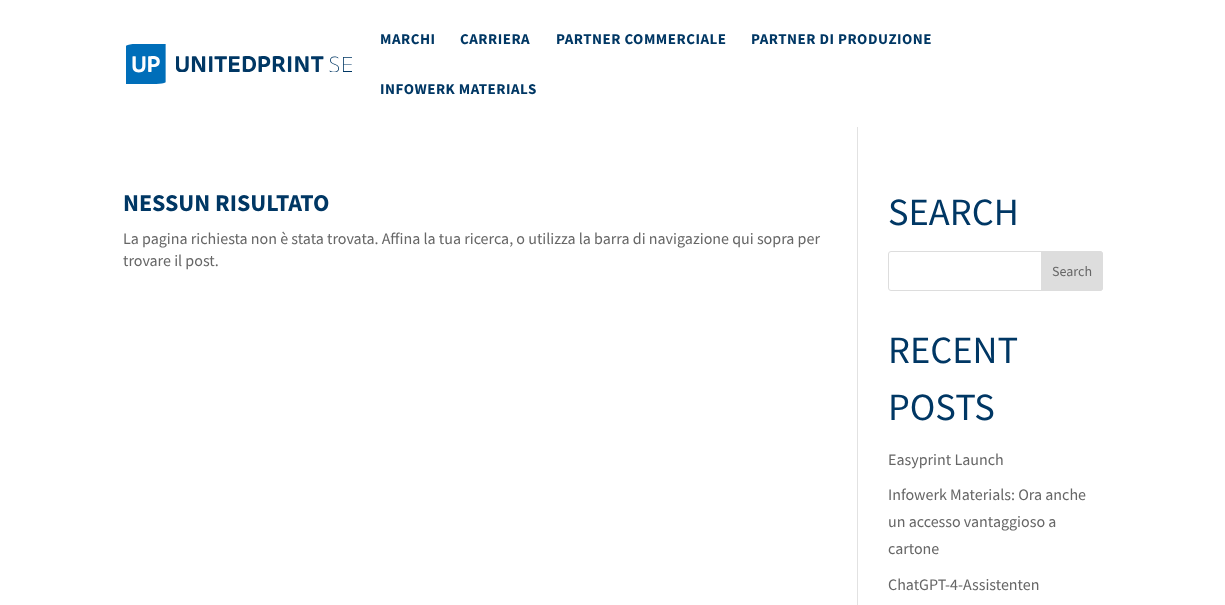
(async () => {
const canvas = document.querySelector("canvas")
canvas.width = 1225
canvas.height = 605
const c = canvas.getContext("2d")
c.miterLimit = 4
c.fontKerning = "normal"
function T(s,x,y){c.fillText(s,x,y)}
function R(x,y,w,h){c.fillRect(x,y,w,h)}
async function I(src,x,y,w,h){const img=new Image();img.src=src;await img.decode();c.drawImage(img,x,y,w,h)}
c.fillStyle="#fff"
R(0,0,1225,605)
c.fillStyle="#e2e2e2"
R(857,125,1,480)
c.fillStyle="#fff"
R(857,125,1,2)
await I("1.png",126,44,226,40)
c.letterSpacing="0.5px"
c.font="bold 15px Source Sans Pro"
c.fillStyle="#003764"
T("MARCHI",380,44)
T("CARRIERA",460,44)
T("PARTNER COMMERCIALE",556,44)
T("PARTNER DI PRODUZIONE",751,44)
T("INFOWERK MATERIALS",380,94)
c.letterSpacing="0px"
c.font="bold 24px Source Sans Pro"
T("NESSUN RISULTATO",123,211)
c.font="16px Source Sans Pro"
c.fillStyle="#666"
T("La pagina richiesta non è stata trovata. Affina la tua ricerca, o utilizza la barra di navigazione qui sopra per",123,244)
T("trovare il post.",123,266)
c.font="38.5px Source Sans Pro"
c.fillStyle="#003764"
T("SEARCH",888,225)
c.beginPath()
c.roundRect(888.5,251.5,214,39,2.5)
c.strokeStyle="#ddd"
c.stroke()
c.fillStyle="#ddd"
c.beginPath()
c.roundRect(1041.5,251.5,61,39,[0,2.5,2.5,0])
c.fill()
c.stroke()
c.font="14px Source Sans Pro"
c.fillStyle="#666"
T("Search",1052,276)
c.font="38.5px Source Sans Pro"
c.fillStyle="#003764"
T("RECENT",888,363)
T("POSTS",888,420)
c.font="16px Source Sans Pro"
c.fillStyle="#666"
T("Easyprint Launch",888,465)
T("Infowerk Materials: Ora anche",888,500)
T("un accesso vantaggioso a",888,527)
T("cartone",888,554)
T("ChatGPT-4-Assistenten",888,590)
})()
